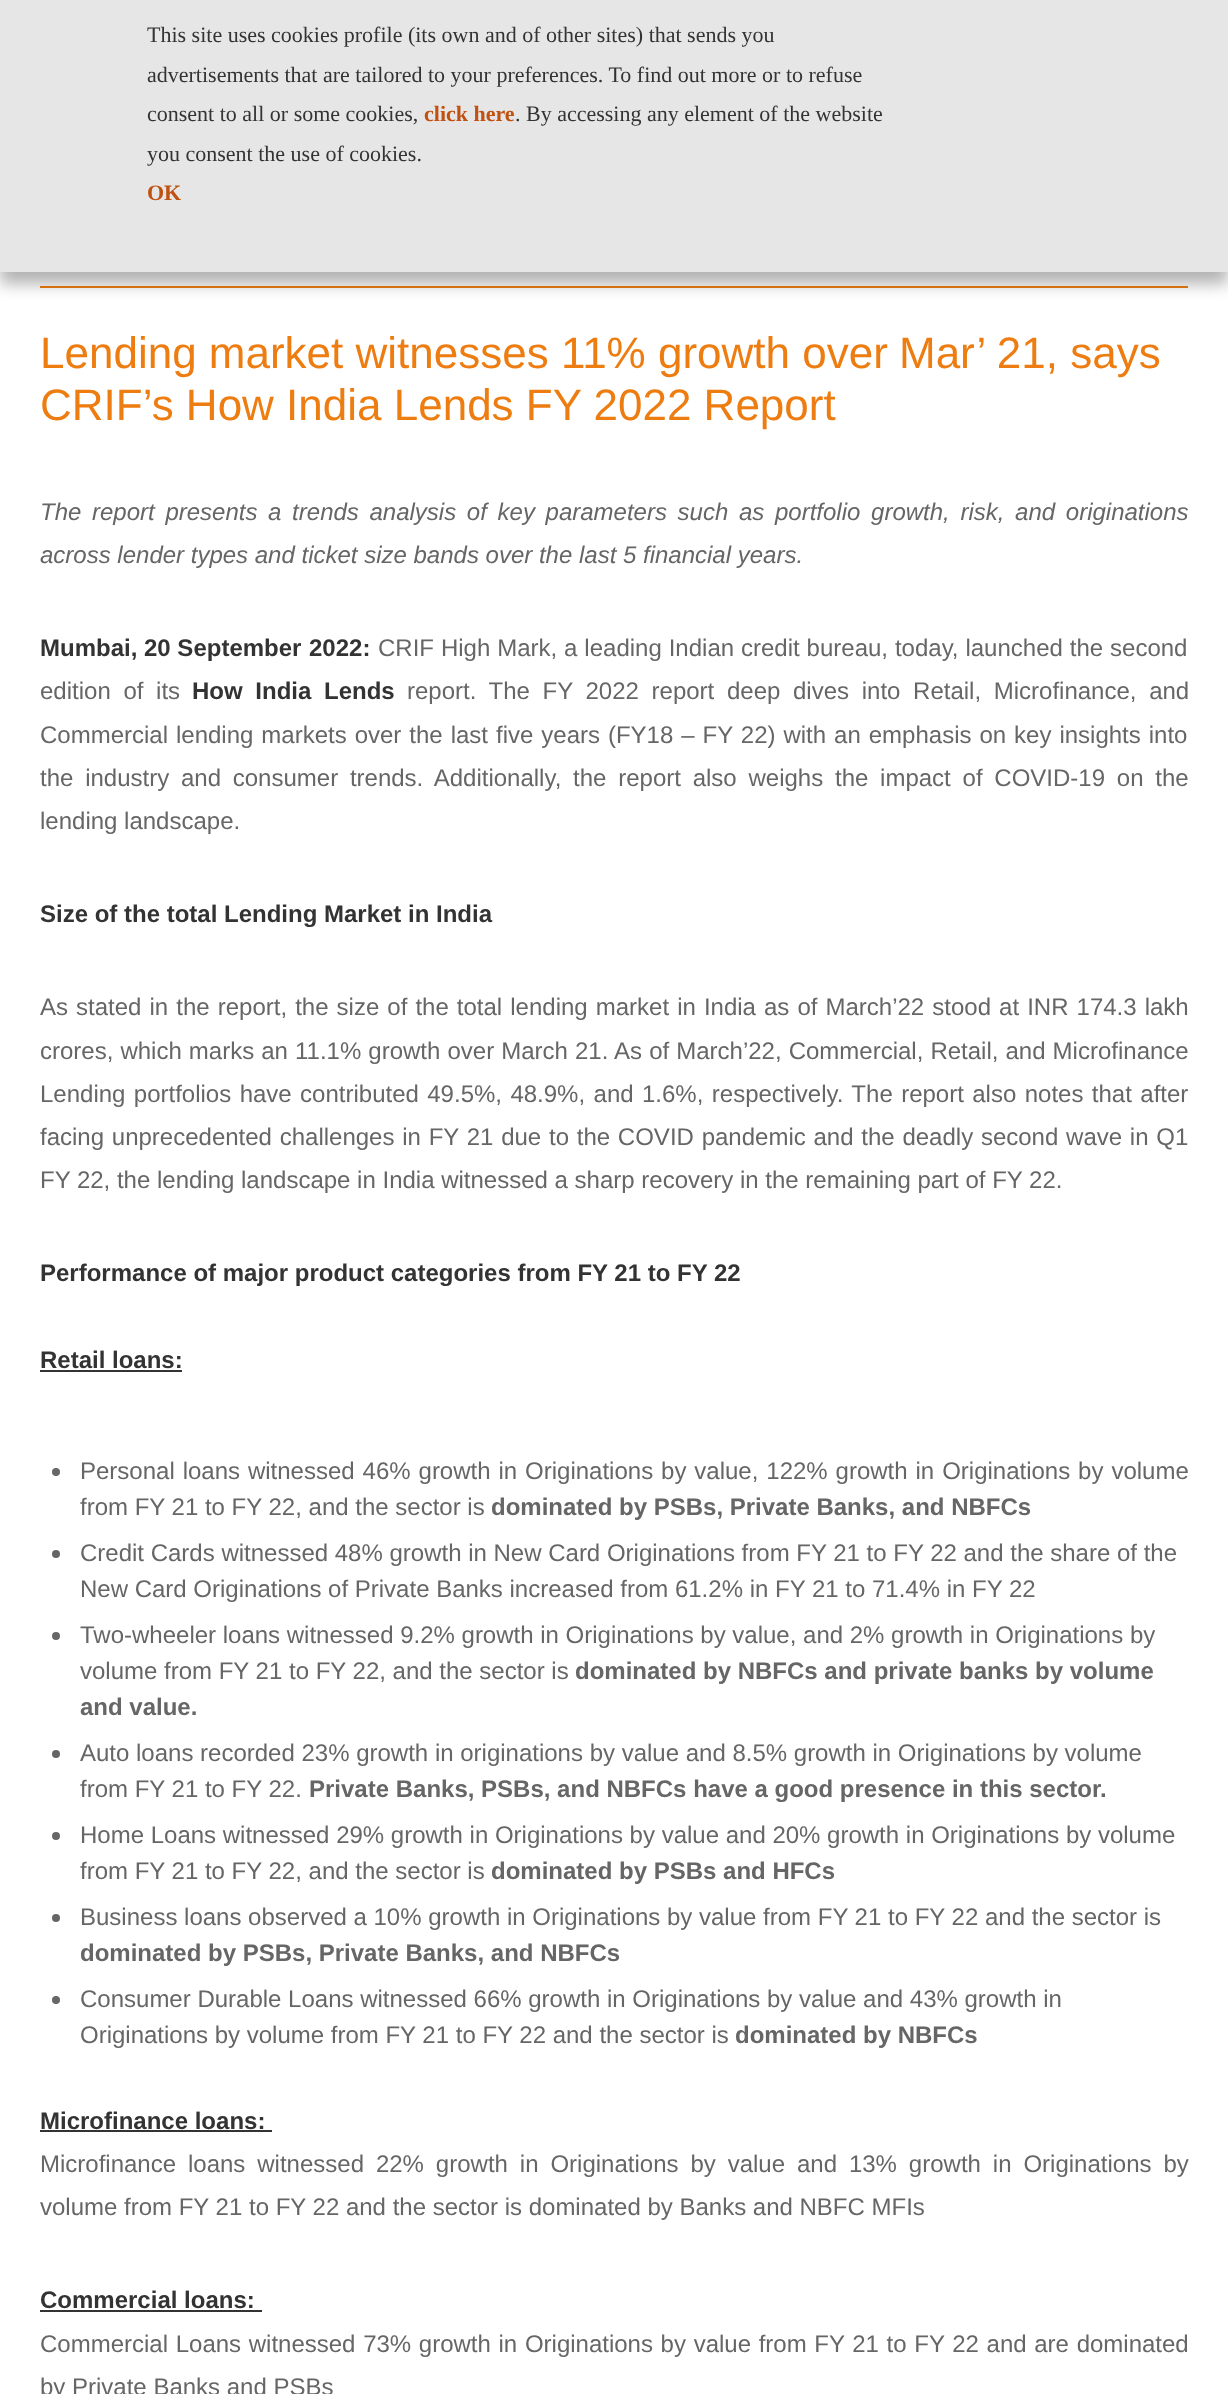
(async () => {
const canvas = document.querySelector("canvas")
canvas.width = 1228
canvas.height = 2394
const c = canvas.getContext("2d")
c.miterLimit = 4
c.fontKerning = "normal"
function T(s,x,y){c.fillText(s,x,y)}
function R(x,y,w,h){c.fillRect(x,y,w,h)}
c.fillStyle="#fff"
R(0,0,1228,2394)
c.fillStyle="#ee7d11"
R(40,286,1148,2)
c.fillStyle="#0000004d"
c.filter="blur(8px)"
c.beginPath()
c.rect(0,12,1228,272)
c.fill()
c.filter="none"
c.fillStyle="#e6e6e6"
R(0,0,1228,272)
c.font="22px Liberation Serif"
c.fillStyle="#333"
T("This site uses cookies profile (its own and of other sites) that sends you",147,42)
T("advertisements that are tailored to your preferences. To find out more or to refuse",147,82)
T("consent to all or some cookies,",147,121)
c.font="bold 22px Liberation Serif"
c.fillStyle="#c05111"
T("click here",424,121)
c.font="22px Liberation Serif"
c.fillStyle="#333"
T(". By accessing any element of the website",515,121)
T("you consent the use of cookies.",147,161)
c.font="bold 22px Liberation Serif"
c.fillStyle="#c05111"
T("OK",147,200)
c.font="44px Liberation Sans"
c.fillStyle="#ee7d11"
T("Lending market witnesses 11% growth over",40,368)
T("Mar’ 21, says",899,368)
T("CRIF’s How India Lends FY 2022 Report",40,420)
c.wordSpacing="4px"
c.font="italic 24px Liberation Sans"
c.fillStyle="#666"
T("The report presents a trends analysis of key parameters such as portfolio growth, risk, and originations",40,520)
c.wordSpacing="0px"
T("across lender types and ticket size bands over the last 5 financial years.",40,563)
c.font="bold 24px Liberation Sans"
c.fillStyle="#333"
T("Mumbai, 20 September",40,656)
T("2022:",309,656)
c.wordSpacing="0.25px"
c.font="24px Liberation Sans"
c.fillStyle="#666"
T("CRIF High Mark, a leading Indian credit bureau, today, launched the second",378,656)
c.wordSpacing="6px"
T("edition of its",40,699)
c.font="bold 24px Liberation Sans"
c.fillStyle="#333"
T("How India Lends",192,699)
c.font="24px Liberation Sans"
c.fillStyle="#666"
T("report. The FY 2022 report deep dives into Retail, Microfinance, and",407,699)
c.wordSpacing="1.3px"
T("Commercial lending markets over the last five years (FY18 – FY 22) with an emphasis on key insights into",40,743)
c.wordSpacing="5.1px"
T("the industry and consumer trends. Additionally, the report also weighs the impact of COVID-19 on the",40,786)
c.wordSpacing="0px"
T("lending landscape.",40,829)
c.font="bold 24px Liberation Sans"
c.fillStyle="#333"
T("Size of the total Lending Market in India",40,922)
c.wordSpacing="1.4px"
c.font="24px Liberation Sans"
c.fillStyle="#666"
T("As stated in the report, the size of the total lending market in India as of March’22 stood at INR 174.3 lakh",40,1015)
c.wordSpacing="0.4px"
T("crores, which marks an 11.1% growth over March 21. As of March’22, Commercial, Retail, and Microfinance",40,1059)
c.wordSpacing="1.75px"
T("Lending portfolios have contributed 49.5%, 48.9%, and 1.6%, respectively. The report also notes that after",40,1102)
c.wordSpacing="1.1px"
T("facing unprecedented challenges in FY 21 due to the COVID pandemic and the deadly second wave in Q1",40,1145)
c.wordSpacing="0px"
T("FY 22, the lending landscape in India witnessed a sharp recovery in the remaining part of FY 22.",40,1188)
c.font="bold 24px Liberation Sans"
c.fillStyle="#333"
T("Performance of major product categories from FY 21 to FY 22",40,1281)
T("Retail loans:",40,1368)
R(40,1370,142,2)
c.fillStyle="#666"
c.beginPath()
c.arc(56,1472,4,0,7)
c.fill()
c.wordSpacing="1.25px"
c.font="24px Liberation Sans"
T("Personal loans witnessed 46% growth in Originations by value, 122% growth in Originations by volume",80,1479)
c.wordSpacing="0px"
T("from FY 21 to FY 22, and the sector is",80,1515)
c.font="bold 24px Liberation Sans"
T("dominated by PSBs, Private Banks, and NBFCs",491,1515)
c.beginPath()
c.arc(56,1554,4,0,7)
c.fill()
c.font="24px Liberation Sans"
T("Credit Cards witnessed 48% growth in New Card Originations from FY 21 to FY 22 and the share of the",80,1561)
T("New Card Originations of Private Banks increased from 61.2% in FY 21 to 71.4% in FY 22",80,1597)
c.beginPath()
c.arc(56,1636,4,0,7)
c.fill()
T("Two-wheeler loans witnessed 9.2% growth in Originations by value, and 2% growth in Originations by",80,1643)
T("volume from FY 21 to FY 22, and the sector is",80,1679)
c.font="bold 24px Liberation Sans"
T("dominated by NBFCs and private banks by volume",575,1679)
T("and value.",80,1715)
c.beginPath()
c.arc(56,1754,4,0,7)
c.fill()
c.font="24px Liberation Sans"
T("Auto loans recorded 23% growth in originations by value and 8.5% growth in Originations by volume",80,1761)
T("from FY 21 to FY 22.",80,1797)
c.font="bold 24px Liberation Sans"
T("Private Banks, PSBs, and NBFCs have a good presence in this sector.",309,1797)
c.beginPath()
c.arc(56,1836,4,0,7)
c.fill()
c.font="24px Liberation Sans"
T("Home Loans witnessed 29% growth in Originations by value and 20% growth in Originations by volume",80,1843)
T("from FY 21 to FY 22, and the sector is",80,1879)
c.font="bold 24px Liberation Sans"
T("dominated by PSBs and HFCs",491,1879)
c.beginPath()
c.arc(56,1918,4,0,7)
c.fill()
c.font="24px Liberation Sans"
T("Business loans observed a 10% growth in Originations by value from FY 21 to FY 22 and the sector is",80,1925)
c.font="bold 24px Liberation Sans"
T("dominated by PSBs, Private Banks, and NBFCs",80,1961)
c.beginPath()
c.arc(56,2000,4,0,7)
c.fill()
c.font="24px Liberation Sans"
T("Consumer Durable Loans witnessed 66% growth in Originations by value and 43% growth in",80,2007)
T("Originations by volume from FY 21 to FY 22 and the sector is",80,2043)
c.font="bold 24px Liberation Sans"
T("dominated by NBFCs",735,2043)
c.fillStyle="#333"
T("Microfinance loans:",40,2129)
R(40,2130,232,2)
c.wordSpacing="5.25px"
c.font="24px Liberation Sans"
c.fillStyle="#666"
T("Microfinance loans witnessed 22% growth in Originations by value and 13% growth in Originations by",40,2172)
c.wordSpacing="0px"
T("volume from FY 21 to FY 22 and the sector is dominated by Banks and NBFC MFIs",40,2215)
c.font="bold 24px Liberation Sans"
c.fillStyle="#333"
T("Commercial loans:",40,2308)
R(40,2310,222,2)
c.wordSpacing="1px"
c.font="24px Liberation Sans"
c.fillStyle="#666"
T("Commercial Loans witnessed 73% growth in Originations by value from FY 21 to FY 22 and are dominated",40,2352)
c.wordSpacing="0px"
T("by Private Banks and PSBs",40,2395)
})()
